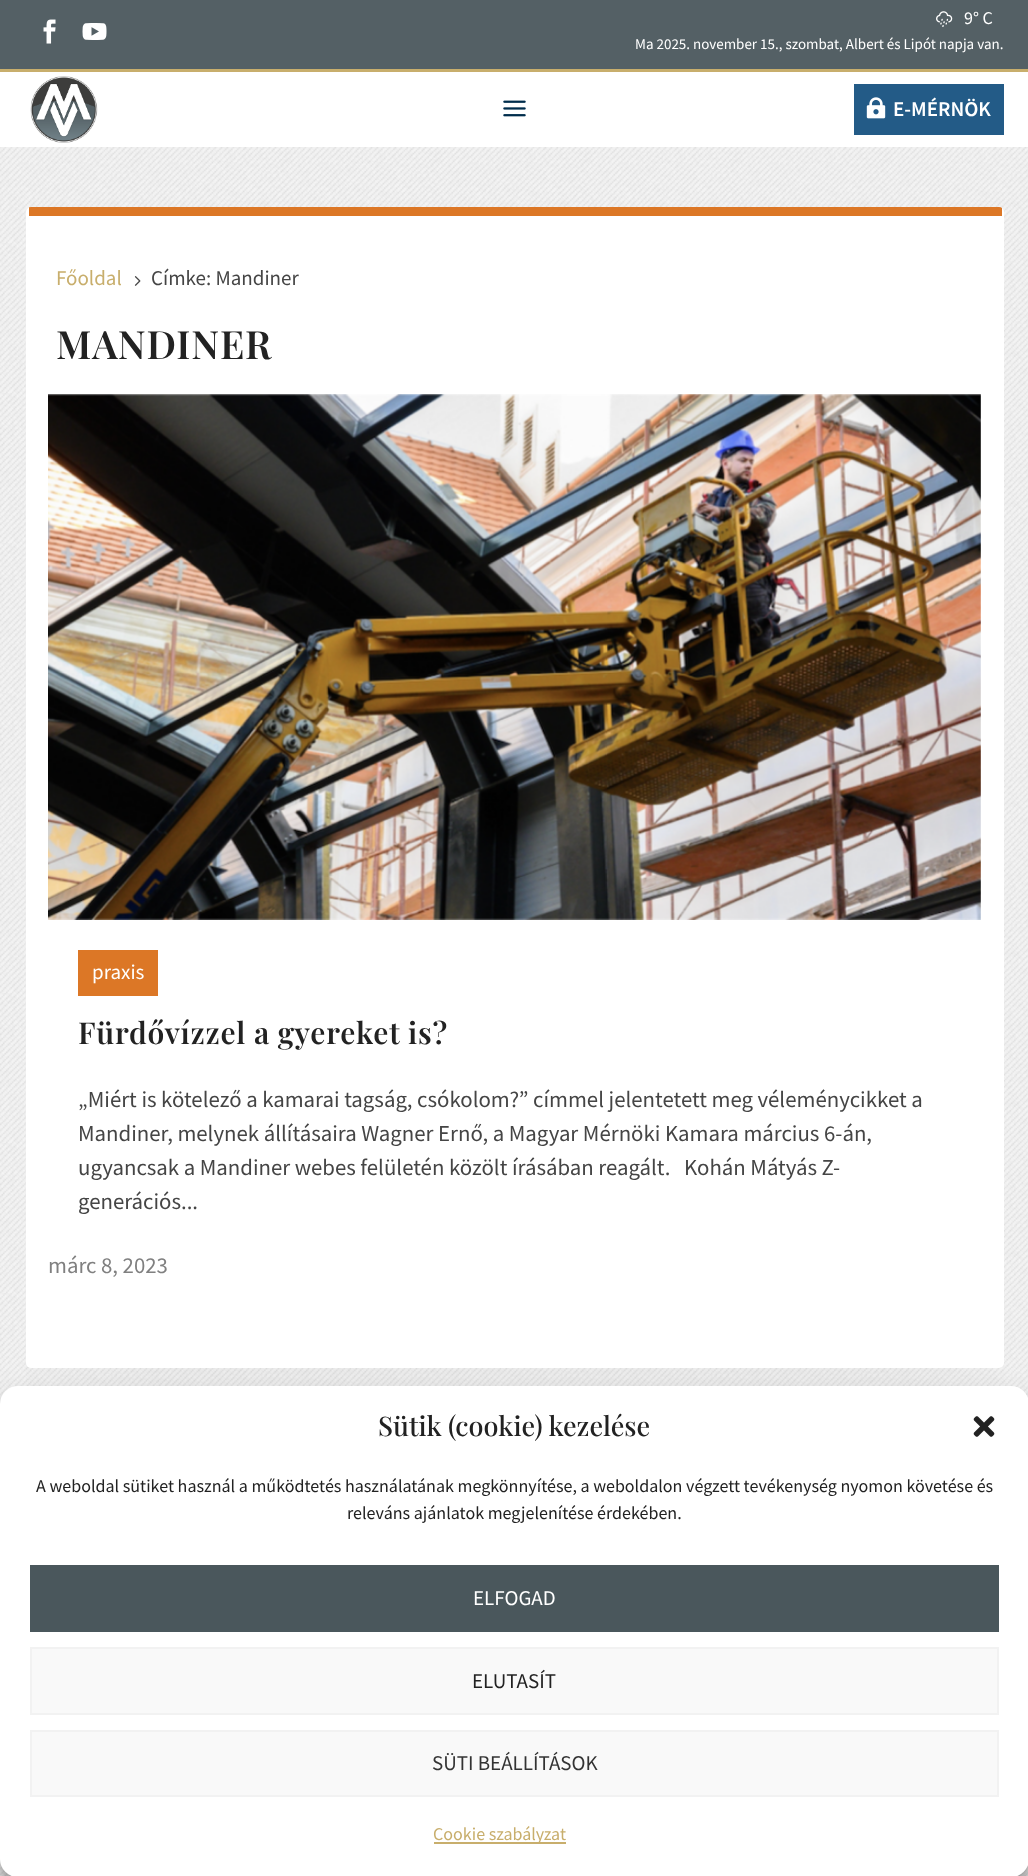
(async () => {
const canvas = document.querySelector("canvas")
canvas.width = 1028
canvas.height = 1876
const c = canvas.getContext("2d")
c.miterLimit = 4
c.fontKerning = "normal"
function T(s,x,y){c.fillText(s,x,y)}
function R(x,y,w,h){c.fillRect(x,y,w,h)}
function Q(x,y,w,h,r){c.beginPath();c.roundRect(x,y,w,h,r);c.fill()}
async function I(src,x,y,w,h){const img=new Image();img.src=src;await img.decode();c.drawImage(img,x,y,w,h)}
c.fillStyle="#fff"
R(0,0,1028,1876)
await I("1.png",0,147,1028,1729)
c.save()
c.beginPath()
c.roundRect(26,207,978,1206,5)
c.clip()
c.fillStyle="#00000014"
c.filter="blur(60px)"
c.beginPath()
c.rect(57,242,915,1098)
c.fill()
c.filter="none"
c.restore()
c.fillStyle="#546065"
R(0,0,1028,69)
c.fillStyle="#c8ae6c"
R(0,69,1028,3)
await I("2.png",43,19,13,25)
await I("3.png",82,23,25,17)
await I("4.png",936,11,17,16)
c.font="18px Source Sans Pro"
c.fillStyle="#fff"
T("9° C",964,24)
c.font="15px Source Sans Pro"
T("Ma 2025. november 15., szombat, Albert és Lipót napja van.",635,49)
await I("5.png",30,76,68,67)
await I("6.png",503,100,23,17)
c.fillStyle="#235b87"
R(854,84,150,51)
await I("7.png",866,97,20,22)
c.font="600 21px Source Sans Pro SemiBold"
c.fillStyle="#fff"
T("E-MÉRNÖK",893,116)
Q(26,207,978,1161,5)
c.save()
c.beginPath()
c.roundRect(26,207,978,1206,5)
c.clip()
c.fillStyle="#dc7726"
R(29,207,973,9)
c.restore()
c.font="21px Source Sans Pro"
c.fillStyle="#c8ae6c"
T("Főoldal",56,285)
await I("8.png",134,276,7,10)
c.fillStyle="#454545"
T("Címke: Mandiner",151,285)
c.letterSpacing="0.75px"
c.font="600 39px Playfair Display"
c.fillStyle="#222"
T("MANDINER",56,359)
await I("9.png",48,394,933,526)
c.fillStyle="#dc7726"
R(78,950,80,46)
c.letterSpacing="0px"
c.font="21px Source Sans Pro"
c.fillStyle="#fff"
T("praxis",92,979)
c.letterSpacing="0.75px"
c.font="600 30px Playfair Display"
c.fillStyle="#222"
T("Fürdővízzel a gyereket is?",78,1044)
c.letterSpacing="0px"
c.font="22.8px Source Sans Pro"
c.fillStyle="#454545"
T("„Miért is kötelező a kamarai tagság, csókolom?” címmel jelentetett meg véleménycikket a",78,1107)
T("Mandiner, melynek állításaira Wagner Ernő, a Magyar Mérnöki Kamara március 6-án,",78,1141)
T("ugyancsak a Mandiner webes felületén közölt írásában reagált.   Kohán Mátyás Z-",78,1175)
T("generációs...",78,1209)
c.fillStyle="#808080"
T("márc 8, 2023",48,1273)
c.fillStyle="#0000003b"
c.filter="blur(4.5px)"
c.beginPath()
c.roundRect(0,1395,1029,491,18)
c.fill()
c.filter="none"
c.fillStyle="#00000030"
c.filter="blur(15px)"
c.beginPath()
c.roundRect(0,1401,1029,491,18)
c.fill()
c.filter="none"
c.fillStyle="#fff"
Q(0,1386,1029,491,18)
c.font="500 27px Playfair Display"
c.fillStyle="#222"
T("Sütik (cookie) kezelése",378,1436)
await I("10.png",973,1416,22,21)
c.font="18px Source Sans Pro"
T("A weboldal sütiket használ a működtetés használatának megkönnyítése, a weboldalon végzett tevékenység nyomon követése és",36,1492)
T("releváns ajánlatok megjelenítése érdekében.",347,1519)
c.fillStyle="#4a575c"
R(30,1565,969,67)
c.font="21px Source Sans Pro"
c.fillStyle="#fff"
T("ELFOGAD",473,1605)
c.fillStyle="#f9f9f9"
c.beginPath()
c.rect(31,1648,967,66)
c.fill()
c.strokeStyle="#f2f2f2"
c.lineWidth=2
c.stroke()
c.fillStyle="#222"
T("ELUTASÍT",472,1688)
c.fillStyle="#f9f9f9"
c.beginPath()
c.rect(31,1731,967,65)
c.fill()
c.stroke()
c.fillStyle="#333"
T("SÜTI BEÁLLÍTÁSOK",432,1770)
c.fillStyle="#c8ae6c"
R(434,1842,132,2)
c.font="18px Source Sans Pro"
T("Cookie szabályzat",433,1840)
})()
